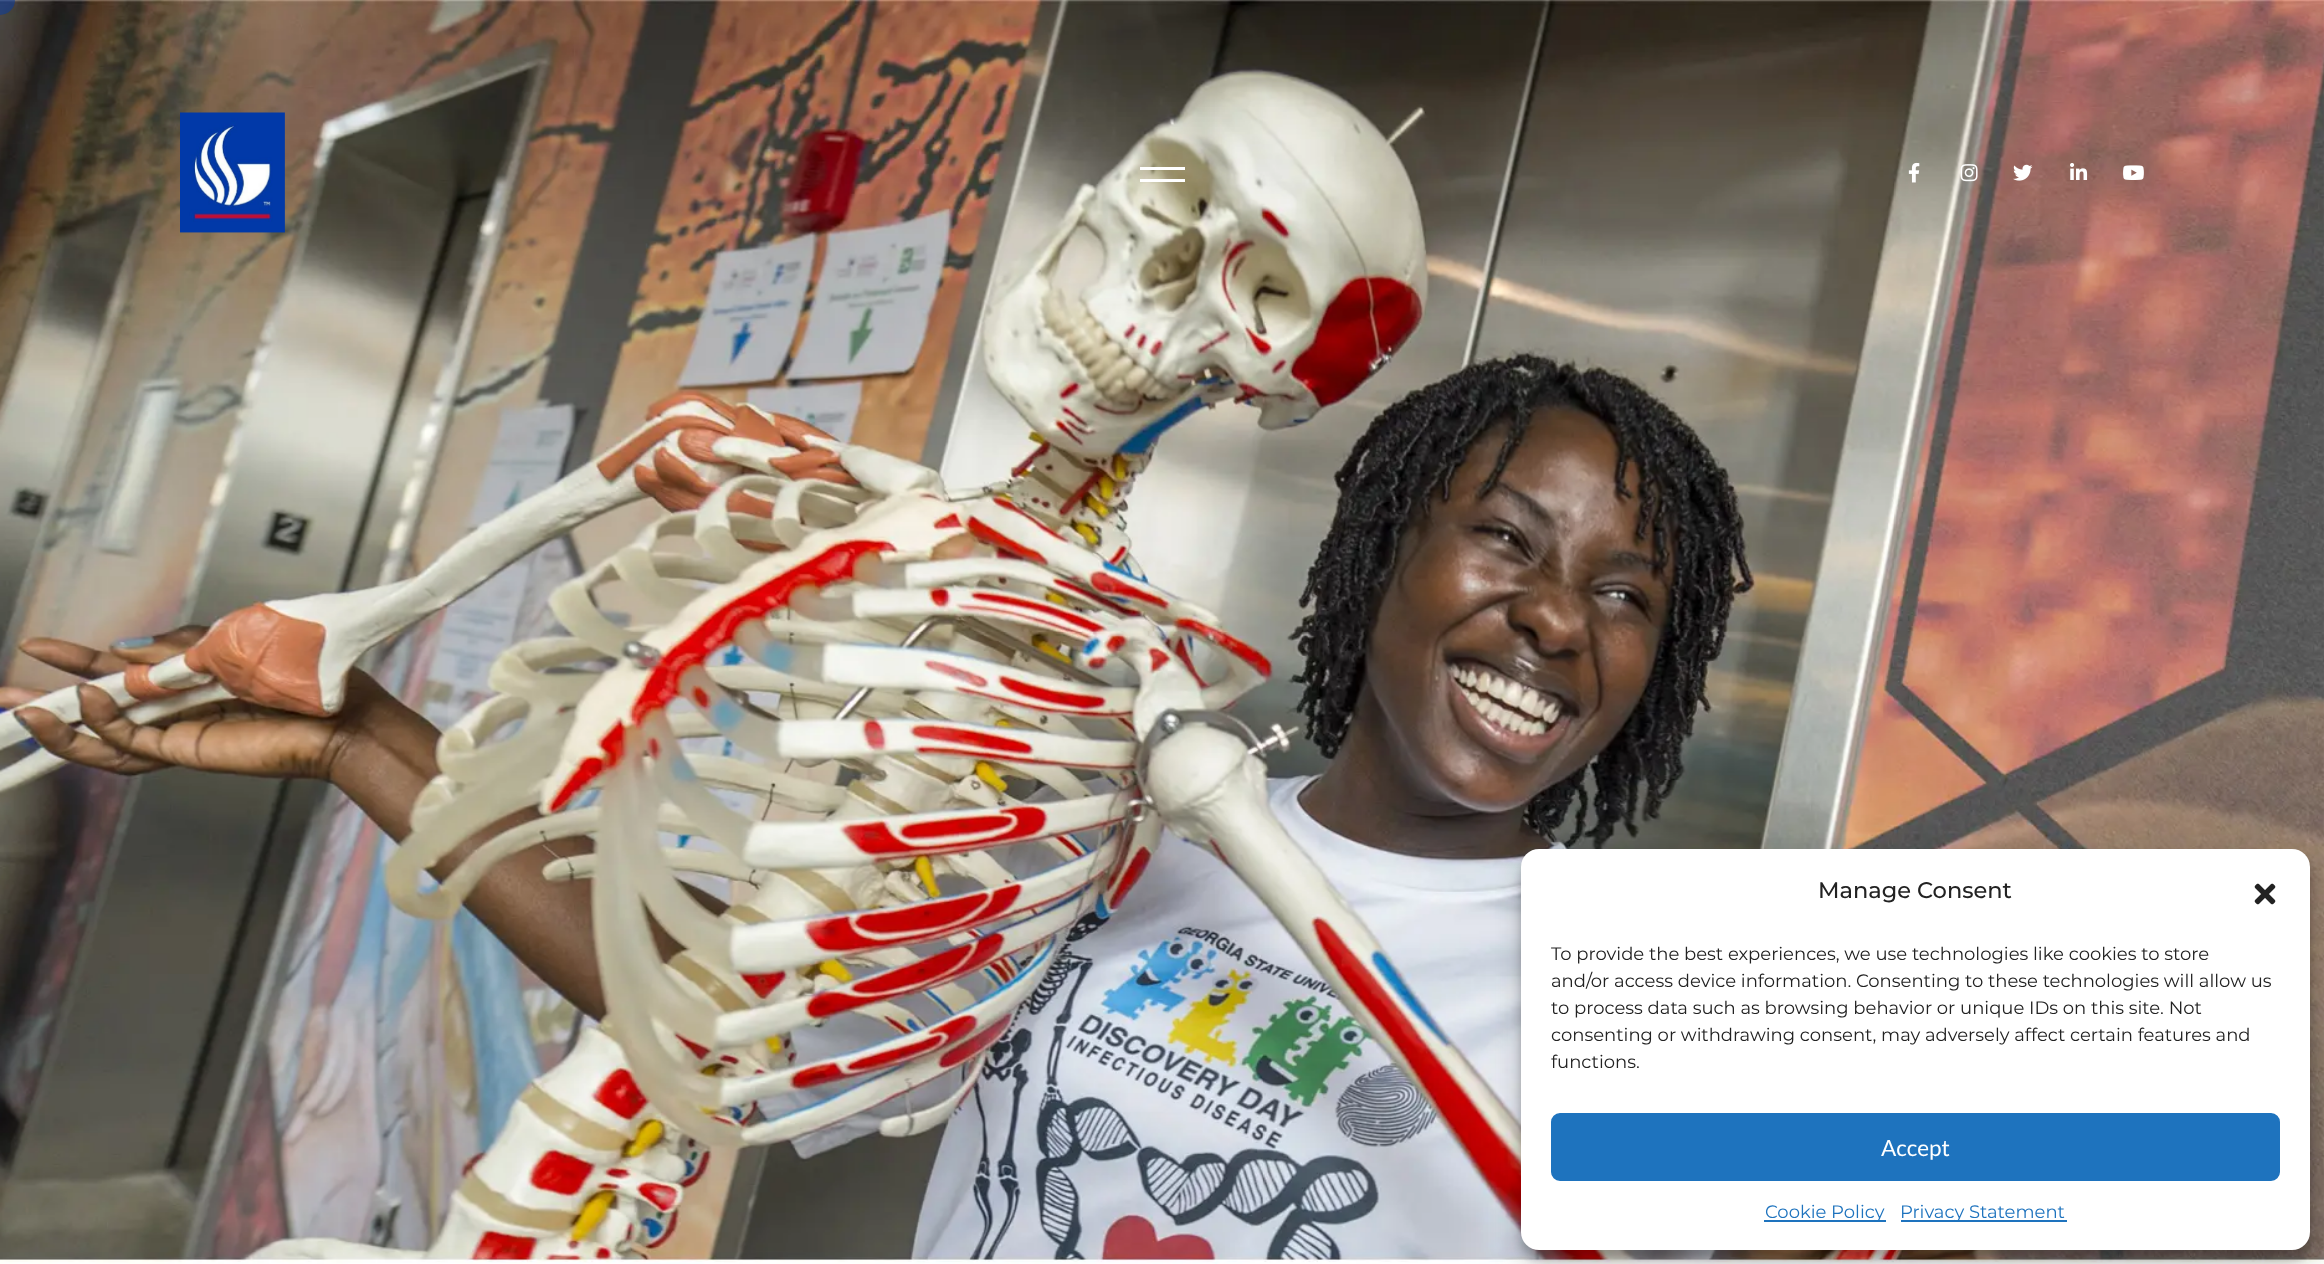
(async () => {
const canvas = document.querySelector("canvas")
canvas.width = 2324
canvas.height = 1264
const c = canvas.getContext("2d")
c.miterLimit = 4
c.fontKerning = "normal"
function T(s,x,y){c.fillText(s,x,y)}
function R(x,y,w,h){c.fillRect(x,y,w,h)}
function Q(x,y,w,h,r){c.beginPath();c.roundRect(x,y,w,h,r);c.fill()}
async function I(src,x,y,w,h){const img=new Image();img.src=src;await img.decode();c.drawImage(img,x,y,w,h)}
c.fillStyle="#fff"
R(0,0,2324,1264)
await I("1.png",0,0,2324,1264)
c.fillStyle="#033ba880"
c.beginPath()
c.arc(0,0,15,0,7)
c.fill()
await I("2.png",180,112,105,121)
c.fillStyle="#fff"
R(1140,167,45,3)
R(1140,179,45,3)
await I("3.png",1908,162,12,21)
await I("4.png",1960,164,18,18)
await I("5.png",2013,164,20,17)
await I("6.png",2070,163,18,17)
await I("7.png",2123,165,21,15)
c.fillStyle="#0000003b"
c.filter="blur(4.5px)"
c.beginPath()
c.roundRect(1521,858,789,401,18)
c.fill()
c.filter="none"
c.fillStyle="#00000030"
c.filter="blur(15px)"
c.beginPath()
c.roundRect(1521,864,789,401,18)
c.fill()
c.filter="none"
c.fillStyle="#fff"
Q(1521,849,789,401,18)
c.font="500 22.5px Montserrat"
c.fillStyle="#222"
T("Manage Consent",1818,898)
await I("8.png",2254,883,22,22)
c.font="18px Montserrat"
T("To provide the best experiences, we use technologies like cookies to store",1551,960)
T("and/or access device information. Consenting to these technologies will allow us",1551,987)
T("to process data such as browsing behavior or unique IDs on this site. Not",1551,1014)
T("consenting or withdrawing consent, may adversely affect certain features and",1551,1041)
T("functions.",1551,1068)
c.fillStyle="#1e73be"
c.beginPath()
c.roundRect(1552,1114,727,66,8)
c.fill()
c.strokeStyle="#1e73be"
c.lineWidth=2
c.stroke()
c.font="22.5px Lato"
c.fillStyle="#fff"
T("Accept",1881,1156)
c.fillStyle="#1e73be"
R(1764,1220,122,2)
c.font="18px Montserrat"
T("Cookie Policy",1765,1218)
R(1901,1220,166,2)
T("Privacy Statement",1900,1218)
})()
